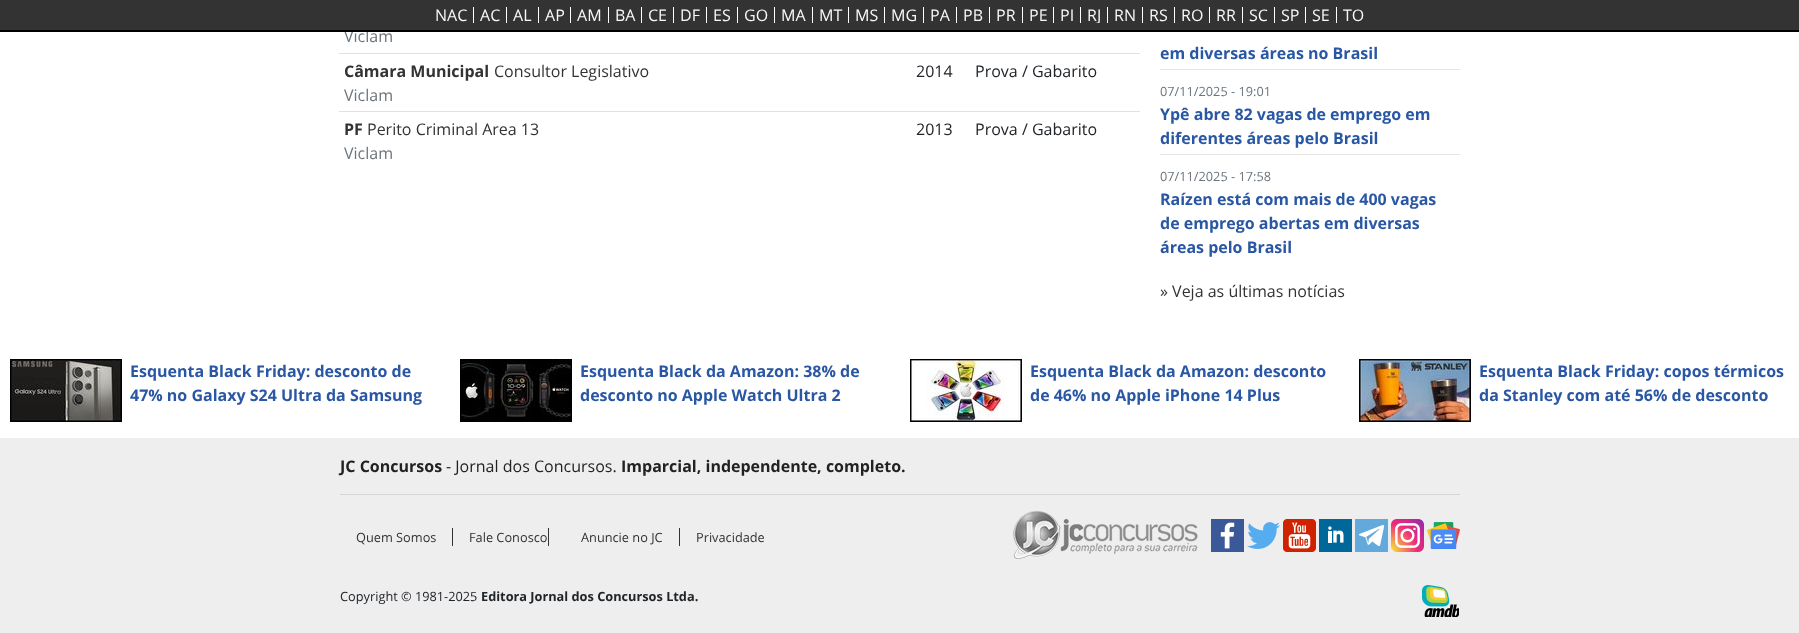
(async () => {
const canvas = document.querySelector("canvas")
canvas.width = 1799
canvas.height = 633
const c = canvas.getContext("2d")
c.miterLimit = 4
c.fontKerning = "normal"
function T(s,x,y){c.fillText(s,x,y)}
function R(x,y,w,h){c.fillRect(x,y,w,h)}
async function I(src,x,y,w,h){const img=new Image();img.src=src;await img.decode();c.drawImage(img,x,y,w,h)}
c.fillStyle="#fff"
R(0,0,1799,633)
c.font="16px Open Sans"
c.fillStyle="#6c757d"
T("Viclam",344,42)
c.fillStyle="#333"
R(0,0,1799,30)
c.fillStyle="#000"
R(0,30,1799,2)
c.fillStyle="#fff"
R(473,7,1,16)
c.fillStyle="#f8f9fa"
T("NAC",435,21)
c.fillStyle="#fff"
R(506,7,1,16)
c.fillStyle="#f8f9fa"
T("AC",480,21)
c.fillStyle="#fff"
R(538,7,1,16)
c.fillStyle="#f8f9fa"
T("AL",513,21)
c.fillStyle="#fff"
R(570,7,1,16)
c.fillStyle="#f8f9fa"
T("AP",545,21)
c.fillStyle="#fff"
R(608,7,1,16)
c.fillStyle="#f8f9fa"
T("AM",577,21)
c.fillStyle="#fff"
R(641,7,1,16)
c.fillStyle="#f8f9fa"
T("BA",615,21)
c.fillStyle="#fff"
R(673,7,1,16)
c.fillStyle="#f8f9fa"
T("CE",648,21)
c.fillStyle="#fff"
R(706,7,1,16)
c.fillStyle="#f8f9fa"
T("DF",680,21)
c.fillStyle="#fff"
R(737,7,1,16)
c.fillStyle="#f8f9fa"
T("ES",713,21)
c.fillStyle="#fff"
R(774,7,1,16)
c.fillStyle="#f8f9fa"
T("GO‍",744,21)
c.fillStyle="#fff"
R(812,7,1,16)
c.fillStyle="#f8f9fa"
T("MA",781,21)
c.fillStyle="#fff"
R(848,7,1,16)
c.fillStyle="#f8f9fa"
T("MT",819,21)
c.fillStyle="#fff"
R(884,7,1,16)
c.fillStyle="#f8f9fa"
T("MS",855,21)
c.fillStyle="#fff"
R(923,7,1,16)
c.fillStyle="#f8f9fa"
T("MG",891,21)
c.fillStyle="#fff"
R(956,7,1,16)
c.fillStyle="#f8f9fa"
T("PA",930,21)
c.fillStyle="#fff"
R(989,7,1,16)
c.fillStyle="#f8f9fa"
T("PB",963,21)
c.fillStyle="#fff"
R(1022,7,1,16)
c.fillStyle="#f8f9fa"
T("PR",996,21)
c.fillStyle="#fff"
R(1053,7,1,16)
c.fillStyle="#f8f9fa"
T("PE",1029,21)
c.fillStyle="#fff"
R(1080,7,1,16)
c.fillStyle="#f8f9fa"
T("PI",1060,21)
c.fillStyle="#fff"
R(1107,7,1,16)
c.save()
c.beginPath()
c.rect(330,7,1140,16)
c.clip()
c.fillStyle="#f8f9fa"
T("RJ",1087,21)
c.restore()
R(1142,7,1,16)
c.fillStyle="#f8f9fa"
T("RN",1114,21)
c.fillStyle="#fff"
R(1174,7,1,16)
c.fillStyle="#f8f9fa"
T("RS",1149,21)
c.fillStyle="#fff"
R(1209,7,1,16)
c.fillStyle="#f8f9fa"
T("RO",1181,21)
c.fillStyle="#fff"
R(1242,7,1,16)
c.fillStyle="#f8f9fa"
T("RR",1216,21)
c.fillStyle="#fff"
R(1274,7,1,16)
c.fillStyle="#f8f9fa"
T("SC",1249,21)
c.fillStyle="#fff"
R(1305,7,1,16)
c.fillStyle="#f8f9fa"
T("SP",1281,21)
c.fillStyle="#fff"
R(1336,7,1,16)
c.fillStyle="#f8f9fa"
T("SE",1312,21)
T("TO",1343,21)
c.font="bold 16px Open Sans"
c.fillStyle="#333"
T("Câmara Municipal",344,77)
c.font="16px Open Sans"
T("Consultor Legislativo",494,77)
c.fillStyle="#6c757d"
T("Viclam",344,101)
c.fillStyle="#212529"
T("2014",916,77)
c.fillStyle="#dee2e6"
R(339,53,801,1)
c.fillStyle="#212529"
T("Prova / Gabarito",975,77)
c.font="bold 16px Open Sans"
c.fillStyle="#333"
T("PF",344,135)
c.font="16px Open Sans"
T("Perito Criminal Area 13",367,135)
c.fillStyle="#6c757d"
T("Viclam",344,159)
c.fillStyle="#212529"
T("2013",916,135)
c.fillStyle="#dee2e6"
R(339,111,801,1)
c.fillStyle="#212529"
T("Prova / Gabarito",975,135)
c.font="bold 16px Open Sans"
c.fillStyle="#2957a4"
T("em diversas áreas no Brasil",1160,59)
c.fillStyle="#e6e6e6"
R(1160,69,300,1)
c.font="12.75px Open Sans"
c.fillStyle="#6c757d"
T("07/11/2025 - 19:01",1160,96)
c.font="bold 16px Open Sans"
c.fillStyle="#2957a4"
T("Ypê abre 82 vagas de emprego em",1160,120)
T("diferentes áreas pelo Brasil",1160,144)
c.fillStyle="#e6e6e6"
R(1160,154,300,1)
c.font="12.75px Open Sans"
c.fillStyle="#6c757d"
T("07/11/2025 - 17:58",1160,181)
c.font="bold 16px Open Sans"
c.fillStyle="#2957a4"
T("Raízen está com mais de 400 vagas",1160,205)
T("de emprego abertas em diversas",1160,229)
T("áreas pelo Brasil",1160,253)
c.font="16px Open Sans"
c.fillStyle="#333"
T("» Veja as últimas notícias",1160,297)
await I("1.png",10,359,112,63)
c.font="bold 16px Open Sans"
c.fillStyle="#2957a4"
T("Esquenta Black Friday: desconto de",130,377)
T("47% no Galaxy S24 Ultra da Samsung",130,401)
await I("2.png",460,359,112,63)
T("Esquenta Black da Amazon: 38% de",580,377)
T("desconto no Apple Watch Ultra 2",580,401)
await I("3.png",910,359,112,63)
T("Esquenta Black da Amazon: desconto",1030,377)
T("de 46% no Apple iPhone 14 Plus",1030,401)
await I("4.png",1359,359,112,63)
T("Esquenta Black Friday: copos térmicos",1479,377)
T("da Stanley com até 56% de desconto",1479,401)
c.fillStyle="#eee"
R(0,438,1799,195)
c.fillStyle="#222"
T("JC Concursos",340,472)
c.font="16px Open Sans"
T("- Jornal dos Concursos.",446,472)
c.font="bold 16px Open Sans"
T("Imparcial, independente, completo.",621,472)
c.fillStyle="#d6d6d6"
R(340,494,1120,1)
c.font="12.75px Open Sans"
c.fillStyle="#333"
T("Quem Somos",356,542)
T("Fale Conosco",469,542)
R(548,528,1,18)
R(452,528,1,18)
T("Anuncie no JC",581,542)
T("Privacidade",696,542)
R(679,528,1,18)
await I("5.png",1013,511,185,48)
await I("6.png",1211,519,33,33)
await I("7.png",1247,522,33,27)
await I("8.png",1283,519,33,33)
await I("9.png",1319,519,33,33)
await I("10.png",1355,519,33,33)
await I("11.png",1391,519,33,33)
await I("12.png",1427,522,33,27)
c.fillStyle="#212529"
T("Copyright © 1981-2025",340,601)
c.font="bold 12.75px Open Sans"
T("Editora Jornal dos Concursos Ltda.",481,601)
await I("13.png",1422,585,37,32)
})()
